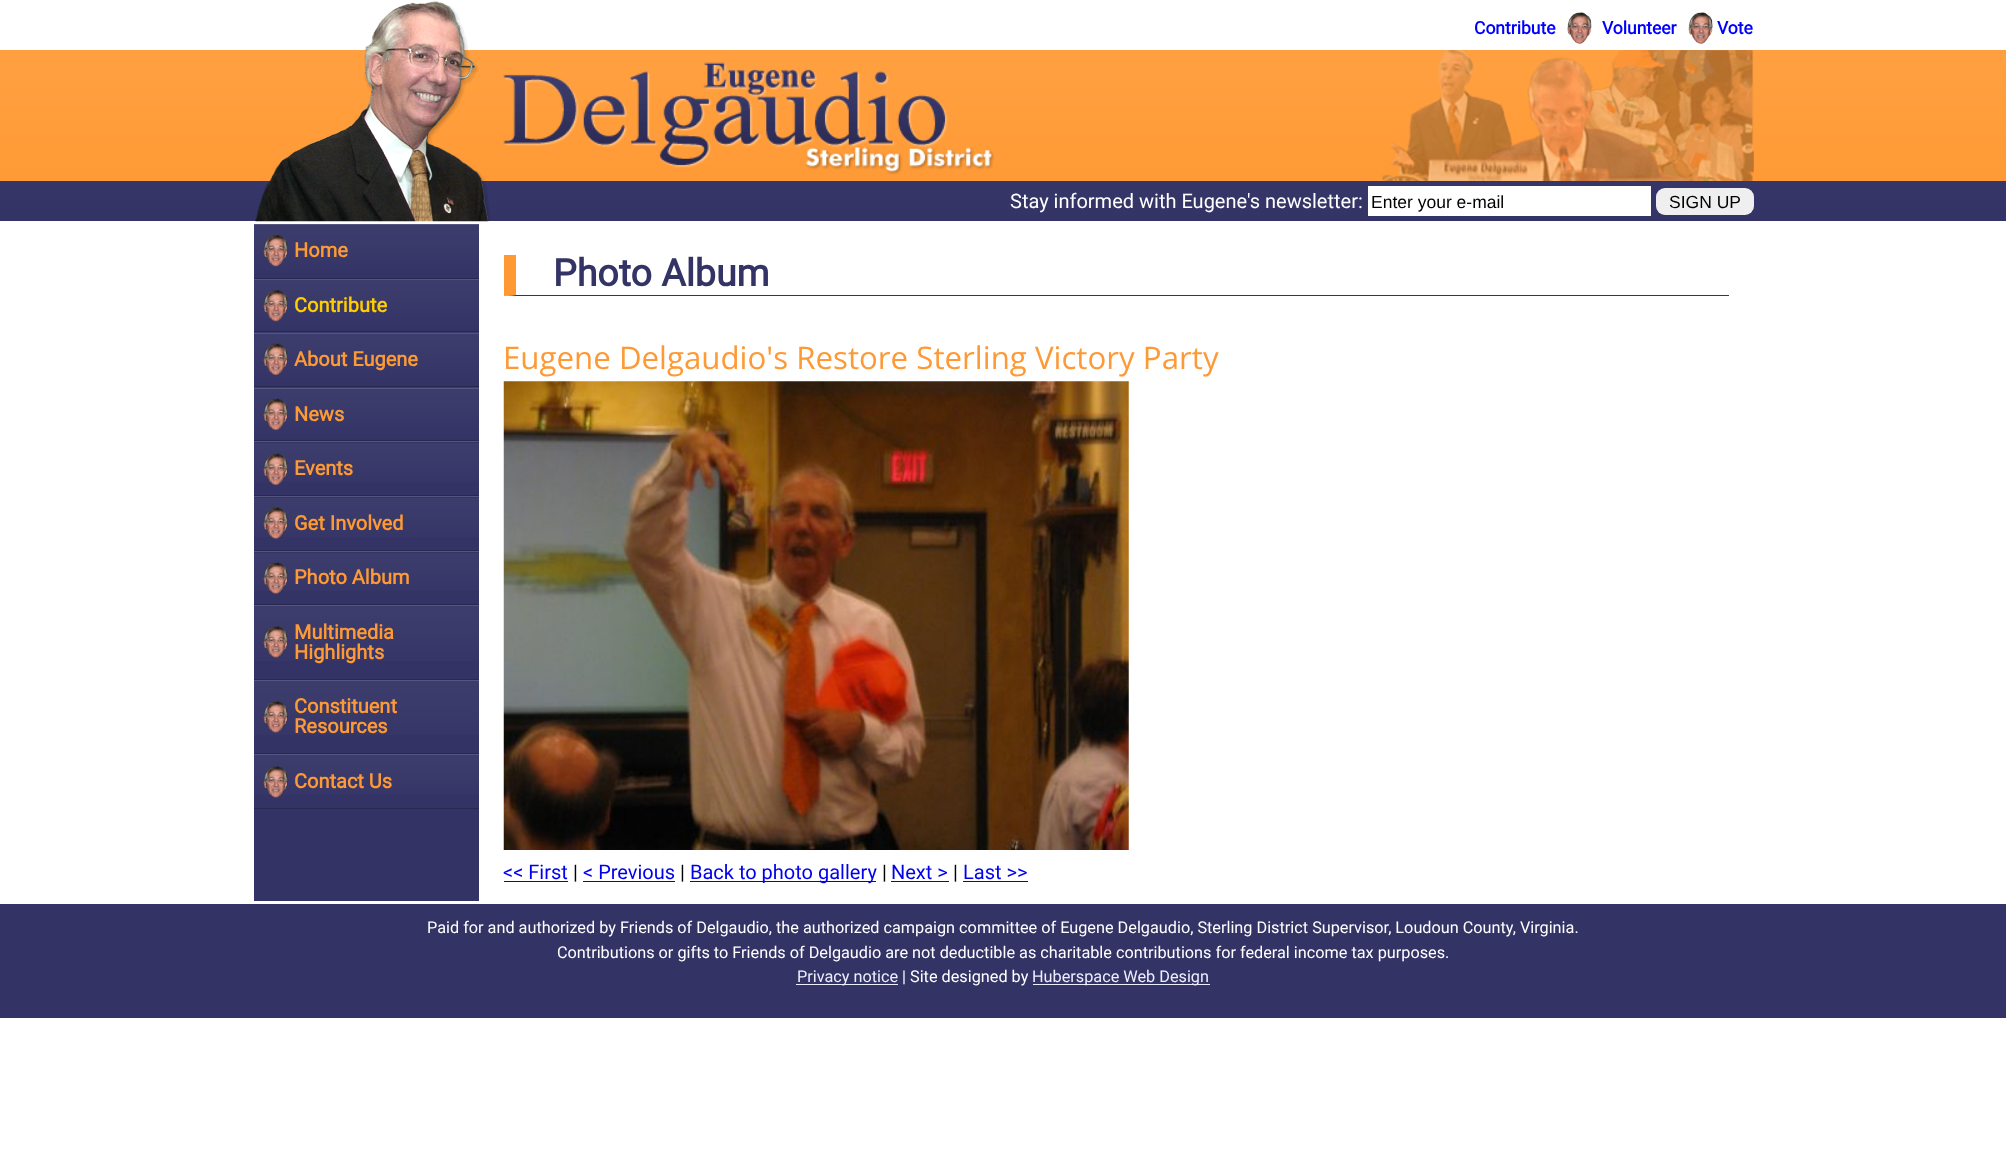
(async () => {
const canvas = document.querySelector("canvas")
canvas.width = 2006
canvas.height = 1167
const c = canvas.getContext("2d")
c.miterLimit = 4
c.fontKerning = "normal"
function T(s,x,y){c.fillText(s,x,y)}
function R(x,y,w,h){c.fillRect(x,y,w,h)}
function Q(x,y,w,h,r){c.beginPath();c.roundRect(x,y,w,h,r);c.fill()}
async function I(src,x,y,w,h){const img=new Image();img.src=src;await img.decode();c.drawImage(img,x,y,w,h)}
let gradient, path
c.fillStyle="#fff"
R(0,0,2006,1167)
gradient = c.createLinearGradient(1003,0,1003,221)
gradient.addColorStop(0,"#ffa244")
gradient.addColorStop(1,"#f93")
c.fillStyle = gradient
R(0,50,2006,131)
await I("1.png",1382,50,372,131)
gradient = c.createLinearGradient(1003,181,1003,221)
gradient.addColorStop(0,"#363668")
gradient.addColorStop(1,"#336")
c.fillStyle = gradient
R(0,181,2006,40)
await I("2.png",255,1,235,221)
await I("3.png",503,62,491,113)
await I("4.png",1567,12,25,32)
c.font="bold 17.5px Roboto"
c.fillStyle="#00f"
T("Contribute",1474,34)
await I("5.png",1688,12,25,32)
T("Volunteer",1602,34)
T("Vote",1717,34)
c.font="20px Roboto"
c.fillStyle="#fff"
T("Stay informed with Eugene's newsletter:",1010,208)
R(1368,186,283,30)
c.font="17.5px Liberation Sans"
c.fillStyle="#000"
T("Enter your e-mail",1371,208)
c.fillStyle="#efefef"
Q(1656,188,98,27,9)
c.fillStyle="#000"
T("SIGN UP",1669,208)
c.fillStyle="#336"
R(254,442,225,459)
gradient = c.createLinearGradient(366,225,366,278)
gradient.addColorStop(0,"#3d3d6d")
gradient.addColorStop(1,"#336")
c.fillStyle = gradient
R(254,225,225,53)
c.fillStyle="#55557f"
R(254,224,225,1)
c.fillStyle="#282850"
R(254,278,225,1)
await I("6.png",263,235,25,32)
c.font="bold 20px Roboto"
c.fillStyle="#fd9a36"
T("Home",294,257)
gradient = c.createLinearGradient(366,280,366,331)
gradient.addColorStop(0,"#3d3d6d")
gradient.addColorStop(1,"#336")
c.fillStyle = gradient
R(254,280,225,51)
gradient = c.createLinearGradient(366,331,366,383)
gradient.addColorStop(0,"#3d3d6d")
gradient.addColorStop(1,"#336")
c.fillStyle = gradient
R(254,332,225,1)
c.fillStyle="#55557f"
R(254,279,225,1)
c.fillStyle="#282850"
R(254,331,225,1)
await I("7.png",263,290,25,32)
c.fillStyle="#fc0"
T("Contribute",294,312)
gradient = c.createLinearGradient(366,334,366,386)
gradient.addColorStop(0,"#3d3d6d")
gradient.addColorStop(1,"#336")
c.fillStyle = gradient
R(254,334,225,52)
gradient = c.createLinearGradient(366,386,366,439)
gradient.addColorStop(0,"#3d3d6d")
gradient.addColorStop(1,"#336")
c.fillStyle = gradient
R(254,387,225,1)
c.fillStyle="#55557f"
R(254,333,225,1)
c.fillStyle="#282850"
R(254,386,225,1)
await I("8.png",263,343,25,32)
c.fillStyle="#fd9a36"
T("About Eugene",294,366)
gradient = c.createLinearGradient(366,389,366,440)
gradient.addColorStop(0,"#3d3d6d")
gradient.addColorStop(1,"#336")
c.fillStyle = gradient
R(254,389,225,51)
c.fillStyle="#55557f"
R(254,388,225,1)
c.fillStyle="#282850"
R(254,440,225,1)
await I("9.png",263,398,25,32)
c.fillStyle="#fd9a36"
T("News",294,421)
gradient = c.createLinearGradient(366,443,366,495)
gradient.addColorStop(0,"#3d3d6d")
gradient.addColorStop(1,"#336")
c.fillStyle = gradient
R(254,443,225,39)
c.fillStyle="#55557f"
R(254,441,225,1)
c.fillStyle="#282850"
R(254,495,225,1)
await I("10.png",263,453,25,32)
c.fillStyle="#fd9a36"
T("Events",294,475)
gradient = c.createLinearGradient(366,498,366,550)
gradient.addColorStop(0,"#3d3d6d")
gradient.addColorStop(1,"#336")
c.fillStyle = gradient
R(254,498,225,39)
c.fillStyle="#55557f"
R(254,496,225,1)
c.fillStyle="#282850"
R(254,550,225,1)
await I("11.png",263,507,25,32)
c.fillStyle="#fd9a36"
T("Get Involved",294,530)
gradient = c.createLinearGradient(366,553,366,604)
gradient.addColorStop(0,"#3d3d6d")
gradient.addColorStop(1,"#336")
c.fillStyle = gradient
R(254,553,225,38)
c.fillStyle="#55557f"
R(254,551,225,1)
c.fillStyle="#282850"
R(254,604,225,1)
await I("12.png",263,562,25,32)
c.fillStyle="#fd9a36"
T("Photo Album",294,584)
gradient = c.createLinearGradient(366,606,366,679)
gradient.addColorStop(0,"#3d3d6d")
gradient.addColorStop(1,"#336")
c.fillStyle = gradient
R(254,606,225,55)
c.fillStyle="#55557f"
R(254,605,225,1)
c.fillStyle="#282850"
R(254,679,225,1)
await I("13.png",263,626,25,32)
c.fillStyle="#fd9a36"
T("Multimedia",294,639)
T("Highlights",294,659)
gradient = c.createLinearGradient(366,681,366,753)
gradient.addColorStop(0,"#3d3d6d")
gradient.addColorStop(1,"#336")
c.fillStyle = gradient
R(254,681,225,54)
c.fillStyle="#55557f"
R(254,680,225,1)
c.fillStyle="#282850"
R(254,753,225,1)
await I("14.png",263,701,25,32)
c.fillStyle="#fd9a36"
T("Constituent",294,713)
T("Resources",294,733)
gradient = c.createLinearGradient(366,755,366,808)
gradient.addColorStop(0,"#3d3d6d")
gradient.addColorStop(1,"#336")
c.fillStyle = gradient
R(254,755,225,40)
c.fillStyle="#55557f"
R(254,754,225,1)
c.fillStyle="#282850"
R(254,808,225,1)
await I("15.png",263,766,25,32)
c.fillStyle="#fd9a36"
T("Contact Us",294,788)
c.fillStyle="#336"
path = new Path2D("M1729 296h-1225l12-1h1213z")
c.fill(path)
c.fillStyle="#f93"
path = new Path2D("M504 296v-41h12v40z")
c.fill(path)
c.font="bold 37.5px Roboto"
c.fillStyle="#336"
T("Photo Album",553,286)
c.font="31.25px Open Sans"
c.fillStyle="#fd9a36"
T("Eugene Delgaudio's Restore Sterling Victory Party",503,369)
await I("16.png",503,381,626,469)
c.font="20px Roboto"
c.fillStyle="#00e"
T("<< First",503,879)
R(504,881,64,1)
c.fillStyle="#000"
T("|",573,879)
c.fillStyle="#00e"
T("< Previous",583,879)
R(583,881,92,1)
c.fillStyle="#000"
T("|",680,879)
c.fillStyle="#00e"
R(690,881,186,1)
T("Back to photo gallery",690,879)
c.fillStyle="#000"
T("|",882,879)
c.fillStyle="#00e"
T("Next >",891,879)
R(891,881,58,1)
c.fillStyle="#000"
T("|",953,879)
c.fillStyle="#00e"
T("Last >>",963,879)
R(963,881,65,1)
c.fillStyle="#336"
R(0,904,2006,114)
c.font="16.25px Roboto"
c.fillStyle="#fff"
T("Paid for and authorized by Friends of Delgaudio, the authorized campaign committee of Eugene Delgaudio, Sterling District Supervisor, Loudoun County, Virginia.",427,933)
T("Contributions or gifts to Friends of Delgaudio are not deductible as charitable contributions for federal income tax purposes.",557,958)
c.fillStyle="#eef"
R(796,984,102,1)
T("Privacy notice",797,982)
c.fillStyle="#fff"
T("| Site designed by",902,982)
c.fillStyle="#eef"
R(1033,984,177,1)
T("Huberspace Web Design",1032,982)
})()
